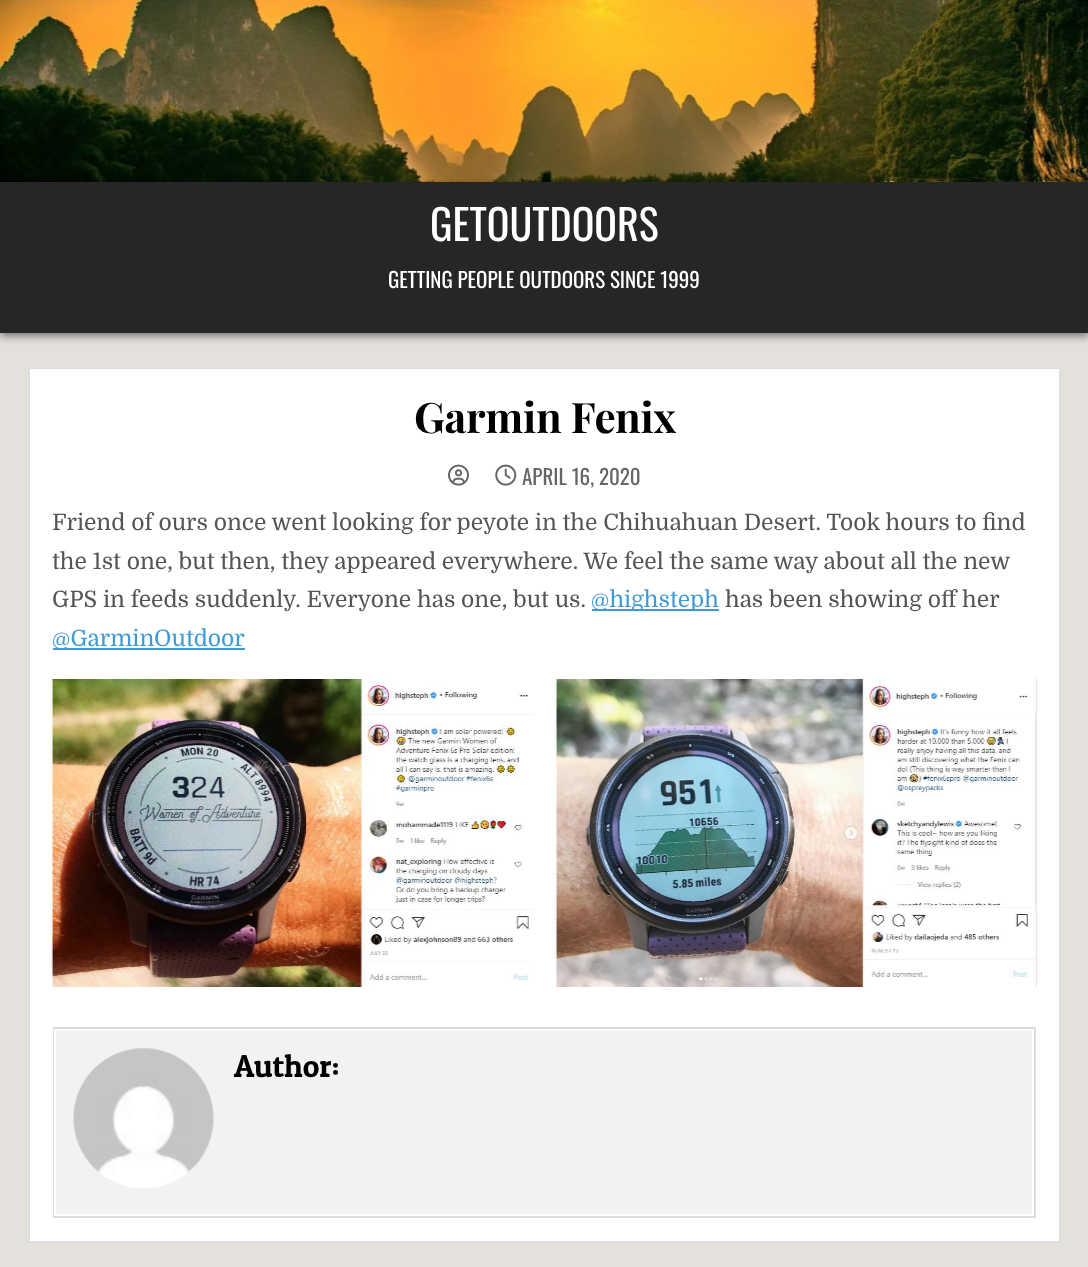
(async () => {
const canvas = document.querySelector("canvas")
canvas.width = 1088
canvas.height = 1267
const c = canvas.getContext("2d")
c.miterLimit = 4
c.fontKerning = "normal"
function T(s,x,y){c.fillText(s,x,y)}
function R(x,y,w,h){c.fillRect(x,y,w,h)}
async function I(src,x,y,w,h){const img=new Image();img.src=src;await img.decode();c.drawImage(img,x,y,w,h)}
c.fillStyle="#e4e0db"
R(0,0,1088,1267)
await I("1.png",0,0,1088,182)
c.fillStyle="#00000080"
c.filter="blur(4.5px)"
c.beginPath()
c.rect(0,186,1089,150)
c.fill()
c.filter="none"
c.fillStyle="#262626"
R(0,182,1088,151)
c.font="42px Oswald"
c.fillStyle="#fff"
T("GETOUTDOORS",430,241)
c.font="21px Oswald"
T("GETTING PEOPLE OUTDOORS SINCE 1999",388,288)
R(32,371,1025,868)
c.strokeStyle="#ddd"
c.lineWidth=2
c.strokeRect(29,369,1031,873)
c.strokeStyle="#fff"
c.strokeRect(31,370,1027,870)
c.letterSpacing="-0.3px"
c.font="bold 42px Playfair Display"
c.fillStyle="#000"
T("Garmin Fenix",414,433)
await I("2.png",448,464,21,22)
await I("3.png",495,464,22,22)
c.letterSpacing="0px"
c.font="21px Oswald"
c.fillStyle="#666"
T("APRIL 16, 2020",522,485)
c.font="22.75px Domine"
c.fillStyle="#555"
T("Friend of ours once went looking for peyote in the Chihuahuan Desert. Took hours to find",52,530)
T("the 1st one, but then, they appeared everywhere. We feel the same way about all the new",52,569)
T("GPS in feeds suddenly. Everyone has one, but us.",52,607)
c.fillStyle="#409bd4"
R(592,609,127,2)
T("@highsteph",591,607)
c.fillStyle="#555"
T("has been showing off her",725,607)
c.fillStyle="#409bd4"
R(53,648,192,2)
T("@GarminOutdoor",52,646)
await I("4.png",51,679,483,308)
await I("5.png",555,679,482,308)
c.fillStyle="#f2f2f2"
R(56,1031,976,183)
c.strokeStyle="#ddd"
c.strokeRect(54,1028,981,189)
c.strokeStyle="#fff"
c.strokeRect(55,1030,978,185)
await I("6.png",73,1048,141,140)
c.font="31.5px Patua One"
c.fillStyle="#000"
T("Author:",234,1077)
})()
